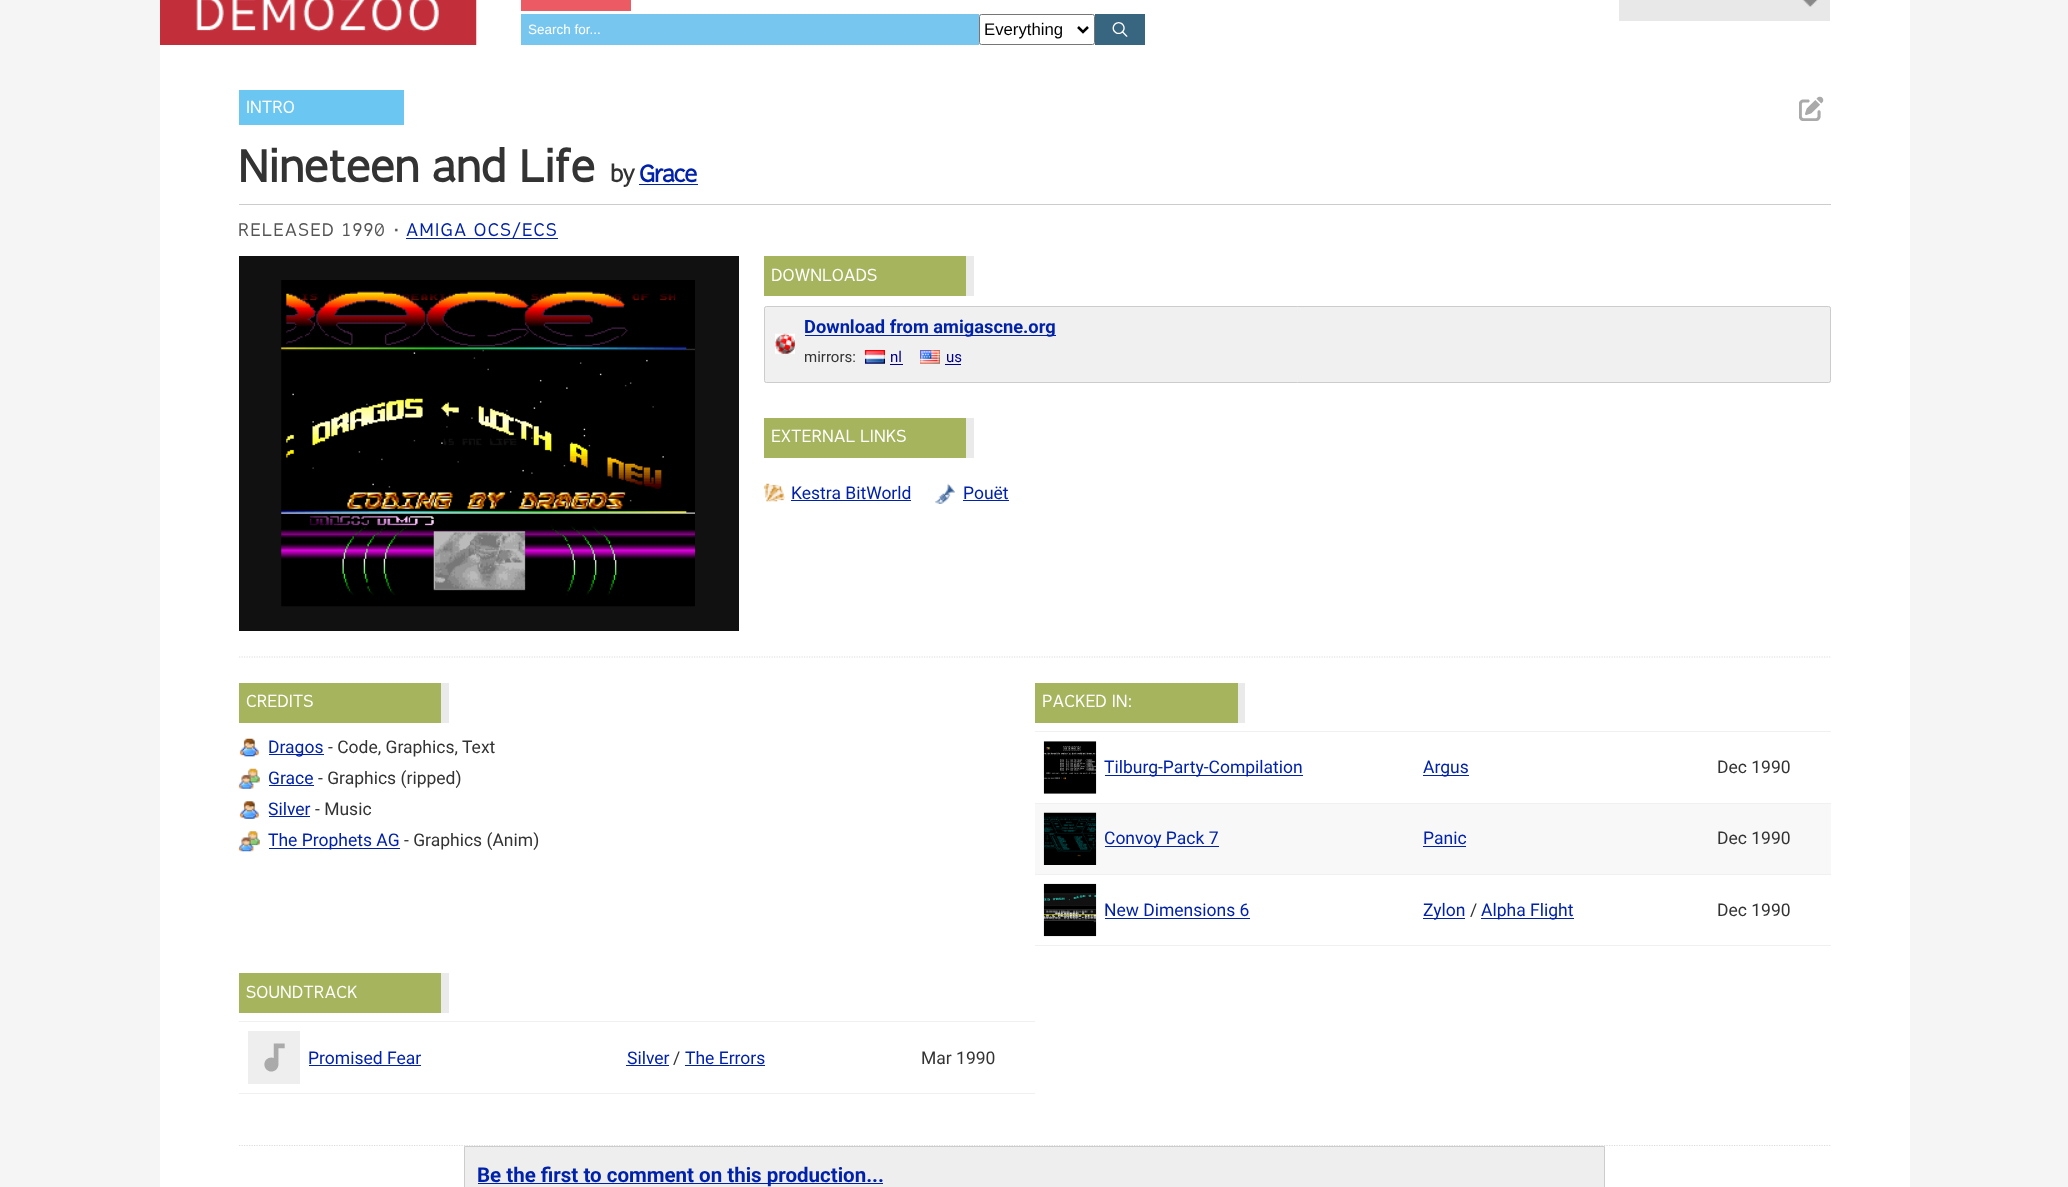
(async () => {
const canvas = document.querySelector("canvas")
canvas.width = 2068
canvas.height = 1187
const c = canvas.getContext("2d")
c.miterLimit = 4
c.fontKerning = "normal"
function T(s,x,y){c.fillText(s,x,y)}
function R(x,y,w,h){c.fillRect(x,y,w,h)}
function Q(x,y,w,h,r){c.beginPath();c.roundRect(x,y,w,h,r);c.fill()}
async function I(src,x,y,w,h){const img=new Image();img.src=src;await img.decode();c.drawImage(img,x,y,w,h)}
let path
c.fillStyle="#f5f5f5"
R(0,0,2068,1187)
c.fillStyle="#fff"
R(160,0,1750,1187)
c.fillStyle="#c32e3b"
R(160,0,36,45)
await I("1.png",196,0,281,45)
c.fillStyle="#e8e8e8"
R(1619,0,211,21)
await I("2.png",1802,0,16,7)
c.fillStyle="#ec5a64"
R(521,0,110,11)
c.fillStyle="#77c6ef"
R(521,14,458,31)
c.font="13.5px Liberation Sans"
c.fillStyle="#fff"
T("Search for...",528,34)
c.beginPath()
c.roundRect(979.5,14.5,115,30,2)
c.strokeStyle="#767676"
c.stroke()
path = new Path2D("M1078 27l5 5l5-5")
c.strokeStyle="#000"
c.lineWidth=2.5
c.stroke(path)
c.font="16.75px Liberation Sans"
c.fillStyle="#000"
T("Everything",984,35)
c.fillStyle="#386580"
R(1095,14,50,31)
await I("3.png",1112,22,16,15)
c.fillStyle="#6bc7f1"
R(239,90,165,35)
c.font="16.75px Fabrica"
c.fillStyle="#fff"
T("INTRO",246,113)
await I("4.png",1799,96,25,25)
c.font="bold 43.25px Fabrica"
c.fillStyle="#333"
T("Nineteen and Life",238,182)
c.letterSpacing="-1.25px"
c.font="bold 23px Fabrica"
T("by",610,182)
c.fillStyle="#02a"
R(639,184,59,1)
T("Grace",639,182)
c.fillStyle="#ccc"
R(239,204,1592,1)
c.letterSpacing="1.25px"
c.font="17.5px Fabrica"
c.fillStyle="#555"
T("RELEASED 1990",238,236)
await I("5.png",394,228,4,4)
c.fillStyle="#02a"
T("AMIGA OCS/ECS",406,236)
R(406,238,152,1)
c.fillStyle="#111"
R(239,256,500,375)
await I("6.png",281,280,414,327)
c.fillStyle="#a5b45d"
R(764,256,202,40)
c.fillStyle="#eaeaea"
R(966,256,8,40)
c.letterSpacing="0px"
c.font="16.75px Fabrica"
c.fillStyle="#fff"
T("DOWNLOADS",771,281)
c.fillStyle="#f0f0f0"
Q(764,306,1067,77,2.5)
await I("7.png",775,333,20,21)
c.beginPath()
c.roundRect(764.5,306.5,1066,76,2)
c.strokeStyle="#ccc"
c.lineWidth=1
c.stroke()
c.fillStyle="#02a"
R(805,335,251,1)
c.font="bold 18.3px Roboto"
T("Download from amigascne.org",804,333)
c.font="15px Roboto"
c.fillStyle="#333"
T("mirrors:",804,362)
await I("8.png",865,350,20,14)
c.fillStyle="#008"
T("nl",890,362)
R(890,364,13,1)
await I("9.png",920,350,20,14)
T("us",946,362)
R(945,364,16,1)
c.fillStyle="#a5b45d"
R(764,418,202,40)
c.fillStyle="#eaeaea"
R(966,418,8,40)
c.font="16.75px Fabrica"
c.fillStyle="#fff"
T("EXTERNAL LINKS",771,442)
await I("10.png",763,483,22,19)
c.font="17.5px Roboto"
c.fillStyle="#02a"
T("Kestra BitWorld",791,499)
R(791,500,120,1)
await I("11.png",935,483,20,21)
T("Pouët",963,499)
R(963,500,46,1)
path = new Path2D("M239 657h1592")
c.strokeStyle="#ddd"
c.lineWidth=1.2
c.setLineDash([1.25,1.25])
c.stroke(path)
c.fillStyle="#eee"
c.beginPath()
c.rect(464.5,1146.5,1140,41)
c.fill()
c.strokeStyle="#ccc"
c.lineWidth=1
c.setLineDash([])
c.stroke()
path = new Path2D("M239 1145.5h1592")
c.strokeStyle="#ddd"
c.lineWidth=1.2
c.setLineDash([1.25,1.25])
c.stroke(path)
c.fillStyle="#a5b45d"
R(239,683,202,40)
c.fillStyle="#eaeaea"
R(441,683,8,40)
c.font="16.75px Fabrica"
c.fillStyle="#fff"
T("CREDITS",246,707)
await I("12.png",239,738,20,19)
c.fillStyle="#02a"
R(269,754,55,1)
c.font="17.5px Roboto"
T("Dragos",268,753)
c.fillStyle="#333"
T("- Code, Graphics,",328,753)
T("Text",462,753)
await I("13.png",238,768,22,21)
c.fillStyle="#02a"
T("Grace",268,784)
R(269,785,45,1)
c.fillStyle="#333"
T("- Graphics (ripped)",318,784)
await I("14.png",239,801,20,18)
c.fillStyle="#02a"
T("Silver",268,815)
R(269,816,41,1)
c.fillStyle="#333"
T("- Music",315,815)
await I("15.png",238,831,22,21)
c.fillStyle="#02a"
R(269,848,131,1)
T("The Prophets AG",268,846)
c.fillStyle="#333"
T("- Graphics (Anim)",404,846)
c.fillStyle="#a5b45d"
R(1035,683,203,40)
c.fillStyle="#eaeaea"
R(1238,683,7,40)
c.font="16.75px Fabrica"
c.fillStyle="#fff"
T("PACKED IN:",1042,707)
c.fillStyle="#f0f0f0"
R(1035,731,796,1)
c.fillStyle="#eee"
R(1044,741,52,53)
await I("16.png",1043,741,54,53)
c.fillStyle="#02a"
R(1105,775,198,1)
c.font="17.5px Roboto"
T("Tilburg-Party-Compilation",1104,773)
R(1423,775,46,1)
T("Argus",1423,773)
c.fillStyle="#333"
T("Dec 1990",1717,773)
c.fillStyle="#f8f8f8"
R(1035,804,796,70)
c.fillStyle="#f0f0f0"
R(1035,803,796,1)
await I("17.png",1043,812,54,53)
c.fillStyle="#02a"
R(1105,846,114,1)
T("Convoy Pack 7",1104,844)
T("Panic",1423,844)
R(1423,846,43,1)
c.fillStyle="#333"
T("Dec 1990",1717,844)
c.fillStyle="#f0f0f0"
R(1035,874,796,1)
R(1035,945,796,1)
await I("18.png",1043,883,54,54)
c.fillStyle="#02a"
T("New Dimensions 6",1104,916)
R(1105,918,145,1)
R(1423,918,42,1)
T("Zylon",1423,916)
c.fillStyle="#333"
T("/",1470,916)
c.fillStyle="#02a"
R(1481,918,93,1)
T("Alpha Flight",1481,916)
c.fillStyle="#333"
T("Dec 1990",1717,916)
c.fillStyle="#a5b45d"
R(239,973,202,40)
c.fillStyle="#eaeaea"
R(441,973,8,40)
c.font="16.75px Fabrica"
c.fillStyle="#fff"
T("SOUNDTRACK",246,998)
c.fillStyle="#f0f0f0"
R(239,1021,796,1)
R(239,1093,796,1)
c.fillStyle="#eee"
R(248,1031,52,53)
await I("19.png",264,1043,21,29)
c.font="17.5px Roboto"
c.fillStyle="#02a"
T("Promised Fear",308,1064)
R(309,1065,112,1)
T("Silver",627,1064)
R(626,1065,43,1)
c.fillStyle="#333"
T("/",673,1064)
c.fillStyle="#02a"
T("The Errors",685,1064)
R(685,1065,80,1)
c.fillStyle="#333"
T("Mar 1990",921,1064)
c.fillStyle="#02a"
R(478,1183,405,1)
c.font="bold 20.5px Roboto"
T("Be the first to comment on this production...",477,1182)
})()
